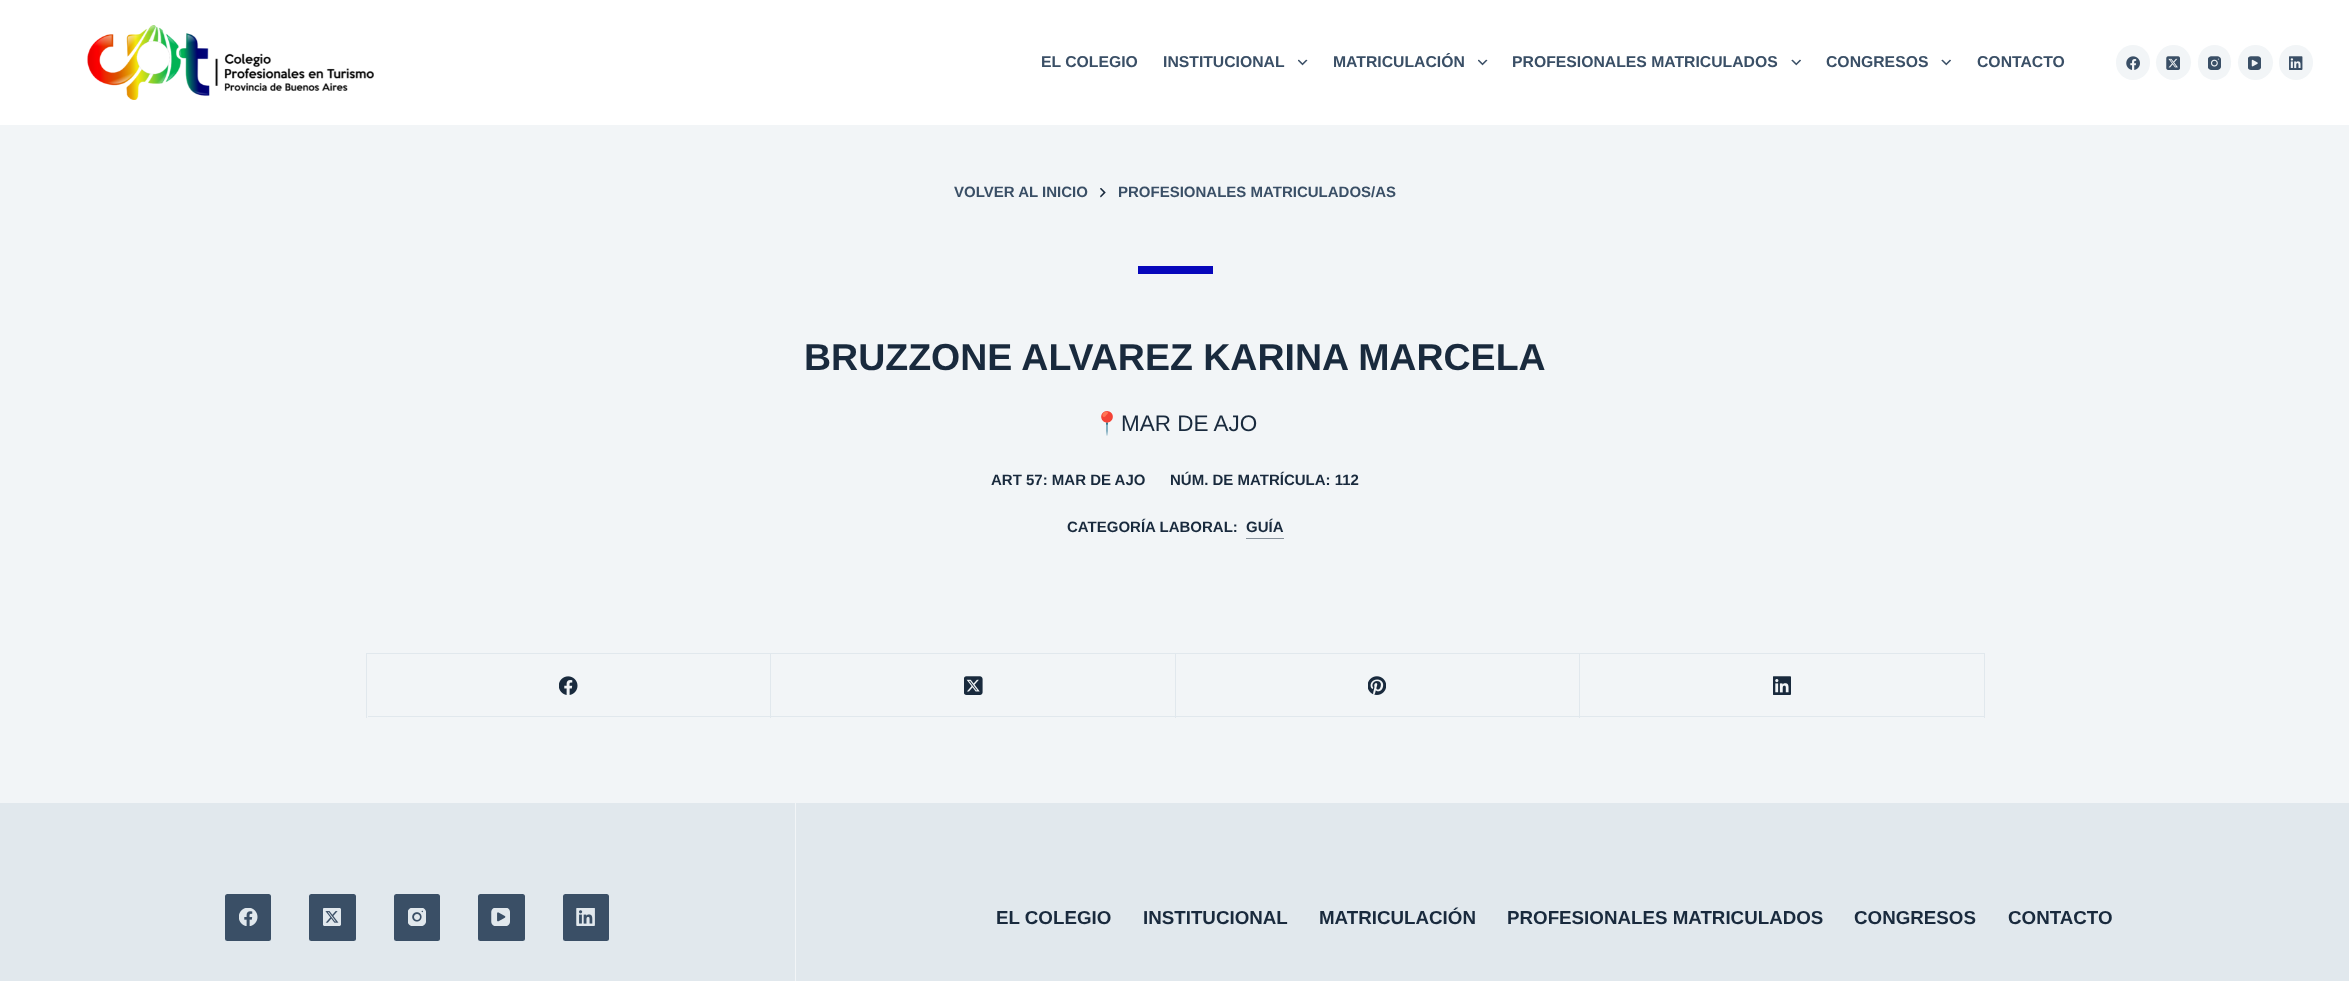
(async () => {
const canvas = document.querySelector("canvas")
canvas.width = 2349
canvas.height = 981
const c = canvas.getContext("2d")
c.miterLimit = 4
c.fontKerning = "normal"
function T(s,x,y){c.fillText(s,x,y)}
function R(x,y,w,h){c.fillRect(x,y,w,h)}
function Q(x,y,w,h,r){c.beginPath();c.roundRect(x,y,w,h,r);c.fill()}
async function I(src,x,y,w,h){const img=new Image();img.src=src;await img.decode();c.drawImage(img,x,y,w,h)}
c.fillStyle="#f2f5f7"
R(0,0,2349,981)
c.fillStyle="#fff"
R(0,0,2349,125)
await I("1.png",87,25,287,75)
c.font="bold 15.75px Liberation Sans"
c.fillStyle="#3a4f66"
T("EL COLEGIO",1041,67)
T("INSTITUCIONAL",1163,67)
await I("2.png",1298,59,10,7)
T("MATRICULACIÓN",1333,67)
await I("2.png",1478,59,10,7)
T("PROFESIONALES MATRICULADOS",1512,67)
await I("3.png",1791,59,10,7)
T("CONGRESOS",1826,67)
await I("3.png",1941,59,10,7)
T("CONTACTO",1977,67)
c.fillStyle="#f2f5f7"
Q(2116,45,34,35,17)
await I("4.png",2126,56,14,14)
c.beginPath()
c.arc(2173.5,62.5,17.5,0,7)
c.fill()
await I("5.png",2166,56,14,14)
Q(2198,45,33,35,16.5)
await I("6.png",2208,56,13,14)
c.beginPath()
c.arc(2255.5,62.5,17.5,0,7)
c.fill()
await I("7.png",2248,56,13,14)
Q(2279,45,34,35,17)
await I("8.png",2289,56,14,14)
c.font="bold 15px Liberation Sans"
c.fillStyle="#3a4f66"
T("VOLVER AL INICIO",954,197)
await I("9.png",1100,188,6,10)
T("PROFESIONALES MATRICULADOS/AS",1118,197)
c.fillStyle="#0707bb"
R(1138,266,75,8)
c.font="bold 37.5px Liberation Sans"
c.fillStyle="#192a3d"
T("BRUZZONE ALVAREZ KARINA MARCELA",804,370)
c.font="22.5px Noto Color Emoji"
T("📍",1093,431)
c.font="22.5px Liberation Sans"
T("MAR DE AJO",1121,431)
c.font="bold 15px Liberation Sans"
T("ART 57: MAR DE AJO",991,485)
T("NÚM. DE MATRÍCULA: 112",1170,485)
T("CATEGORÍA LABORAL:",1067,532)
T("GUÍA",1246,532)
c.fillStyle="#86909a"
R(1246,538,38,1)
c.fillStyle="#e1e8ed"
R(366,653,1619,1)
R(366,653,1,65)
R(770,654,1,64)
R(368,716,403,1)
await I("10.png",559,676,19,19)
R(1175,654,1,64)
R(771,716,405,1)
await I("11.png",964,676,19,19)
R(1579,654,1,64)
R(1176,716,404,1)
await I("12.png",1368,676,18,19)
R(1984,654,1,64)
R(1580,716,405,1)
await I("13.png",1773,676,18,19)
R(0,803,2349,178)
c.fillStyle="#3a4f66"
Q(225,894,46,47,2.5)
await I("14.png",239,908,19,18)
Q(309,894,47,47,2.5)
await I("15.png",323,908,18,18)
Q(394,894,46,47,2.5)
await I("16.png",408,908,18,18)
Q(478,894,47,47,2.5)
await I("17.png",491,908,19,18)
Q(563,894,46,47,2.5)
await I("18.png",576,908,19,18)
c.fillStyle="#f2f5f7"
R(795,803,1,178)
c.font="bold 18.75px Liberation Sans"
c.fillStyle="#192a3d"
T("EL COLEGIO",996,924)
T("INSTITUCIONAL",1143,924)
T("MATRICULACIÓN",1319,924)
T("PROFESIONALES MATRICULADOS",1507,924)
T("CONGRESOS",1854,924)
T("CONTACTO",2008,924)
})()
